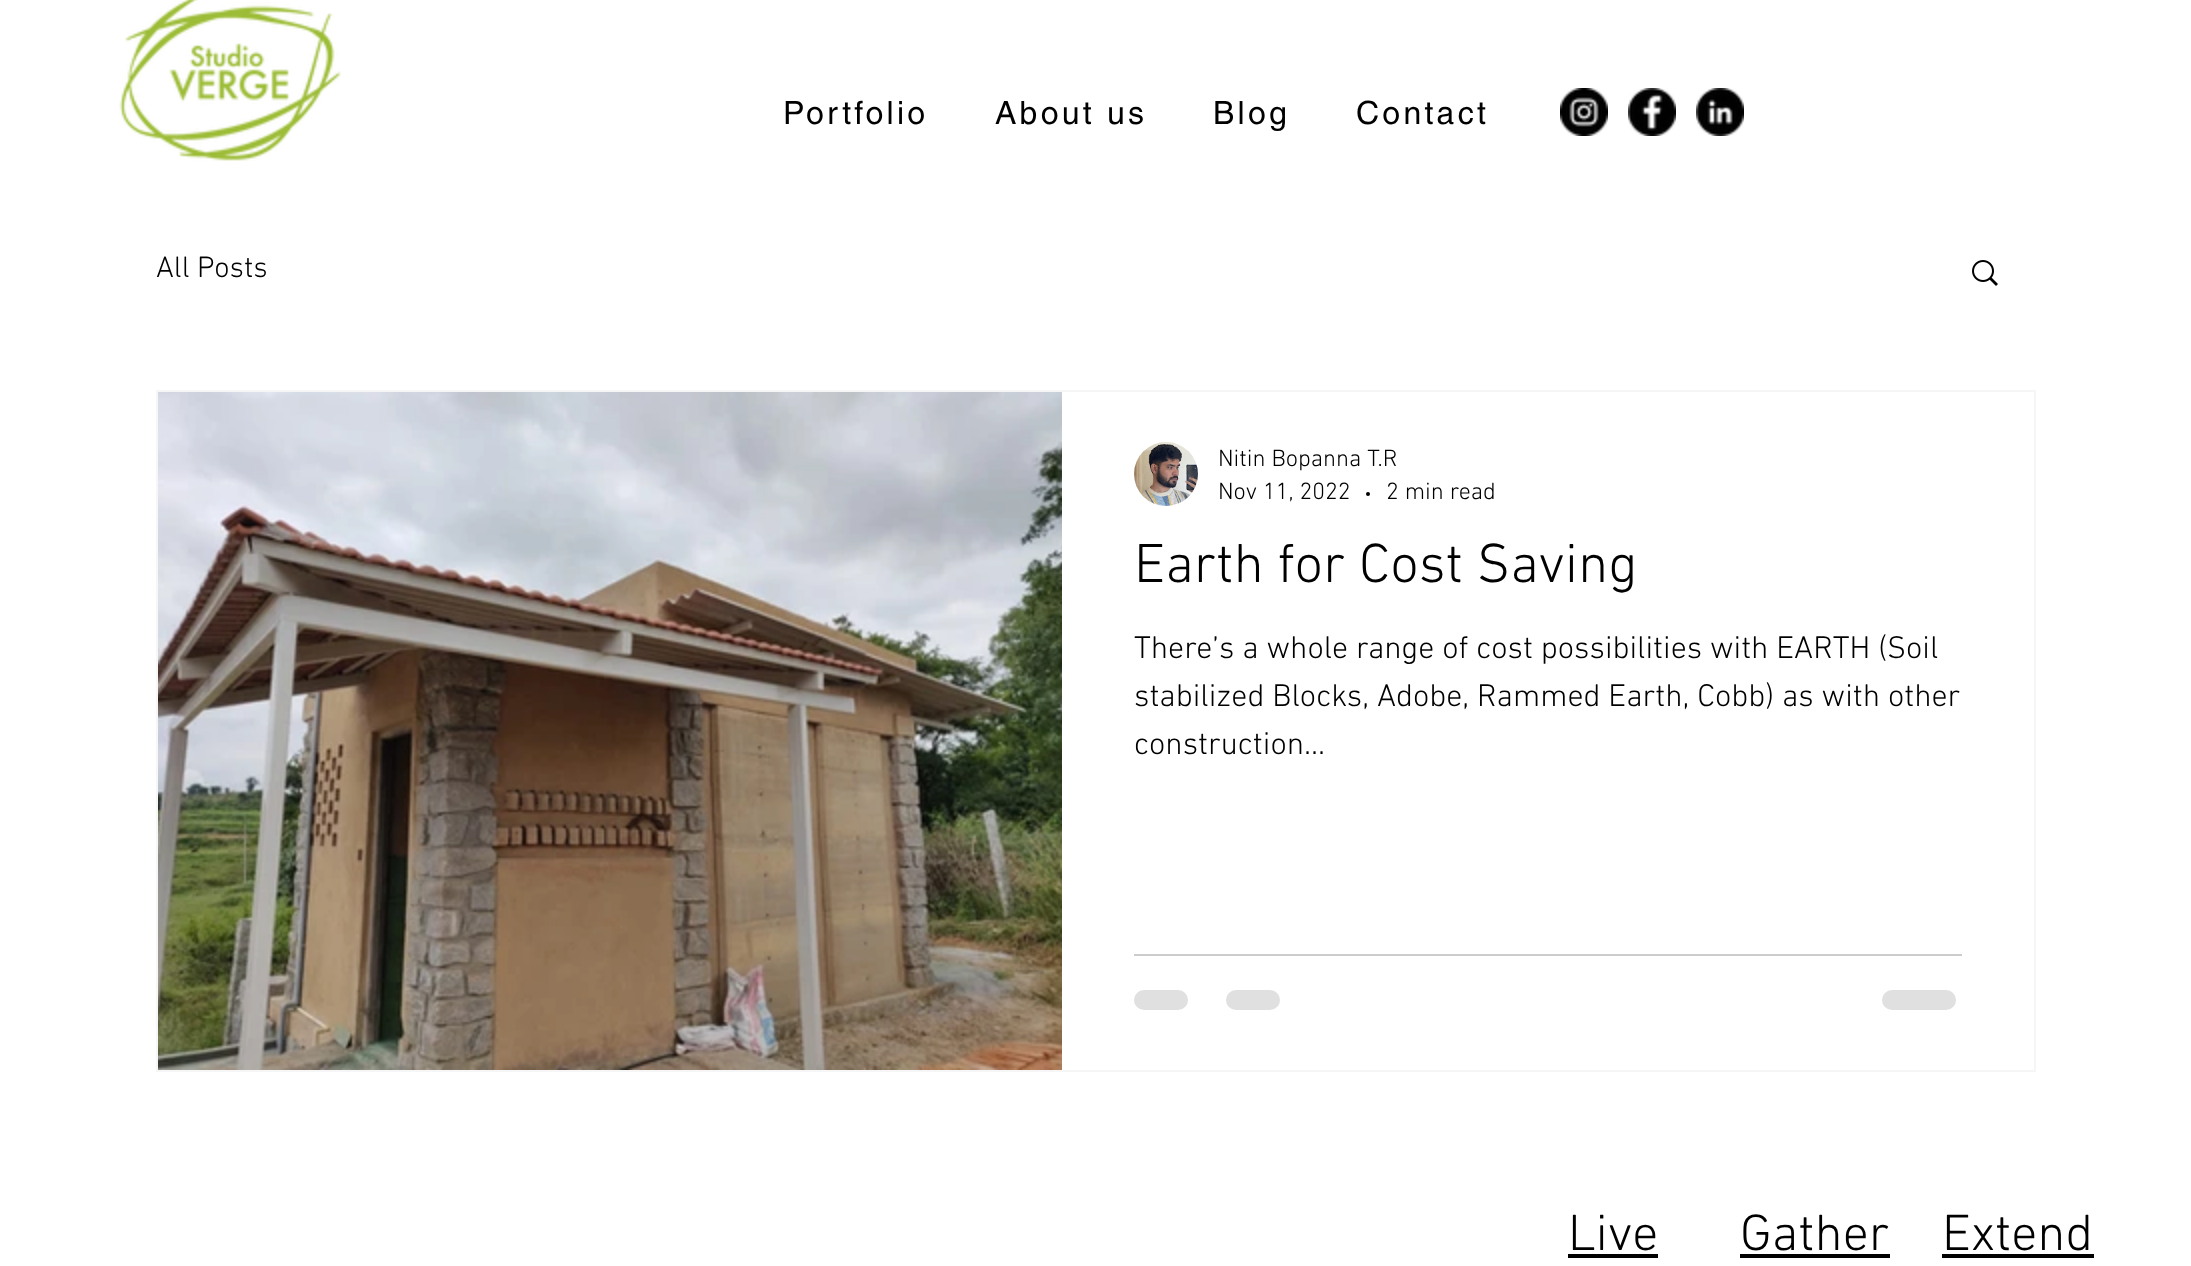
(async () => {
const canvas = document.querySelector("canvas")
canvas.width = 2191
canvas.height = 1266
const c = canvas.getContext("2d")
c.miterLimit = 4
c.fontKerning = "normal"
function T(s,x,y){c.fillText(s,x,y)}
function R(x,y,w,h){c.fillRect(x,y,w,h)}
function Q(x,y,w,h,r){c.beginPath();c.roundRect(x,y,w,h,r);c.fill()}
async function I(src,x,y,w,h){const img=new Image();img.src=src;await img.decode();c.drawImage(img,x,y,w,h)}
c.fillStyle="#fff"
R(0,0,2191,1266)
await I("1.png",119,0,222,161)
c.letterSpacing="3.25px"
c.font="32px helvetica"
c.fillStyle="#000"
T("Portfolio",783,124)
T("About us",995,124)
T("Blog",1213,124)
T("Contact",1356,124)
await I("2.png",1560,88,48,48)
await I("3.png",1628,88,48,48)
await I("4.png",1696,88,48,48)
c.letterSpacing="0px"
c.font="300 30px 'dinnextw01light'"
T("All Posts",156,277)
await I("5.png",1972,260,26,26)
c.strokeStyle="#f6f6f6"
c.lineWidth=2
c.strokeRect(157,391,1878,680)
await I("6.png",158,392,904,678)
await I("7.png",1134,442,64,64)
c.font="300 24px 'dinnextw01light'"
T("Nitin Bopanna T.R",1218,466)
T("Nov 11, 2022",1218,499)
c.beginPath()
c.arc(1368,494,2,0,7)
c.fill()
T("2 min read",1386,499)
c.font="300 56px 'dinnextw01light'"
T("Earth for Cost Saving",1134,582)
c.font="300 32px 'dinnextw01light'"
T("There’s a whole range of cost possibilities with EARTH (Soil",1134,658)
T("stabilized Blocks, Adobe, Rammed Earth, Cobb) as with other",1134,706)
T("construction...",1134,754)
c.fillStyle="#ccc"
R(1134,954,828,2)
c.fillStyle="#e0e0e0"
Q(1134,990,54,20,10)
Q(1226,990,54,20,10)
Q(1882,990,74,20,10)
c.font="300 52px 'dinnextw01light'"
c.fillStyle="#000"
T("Live",1568,1250)
R(1568,1254,90,4)
T("Gather",1740,1250)
R(1740,1254,150,4)
T("Extend",1942,1250)
R(1942,1254,152,4)
})()
